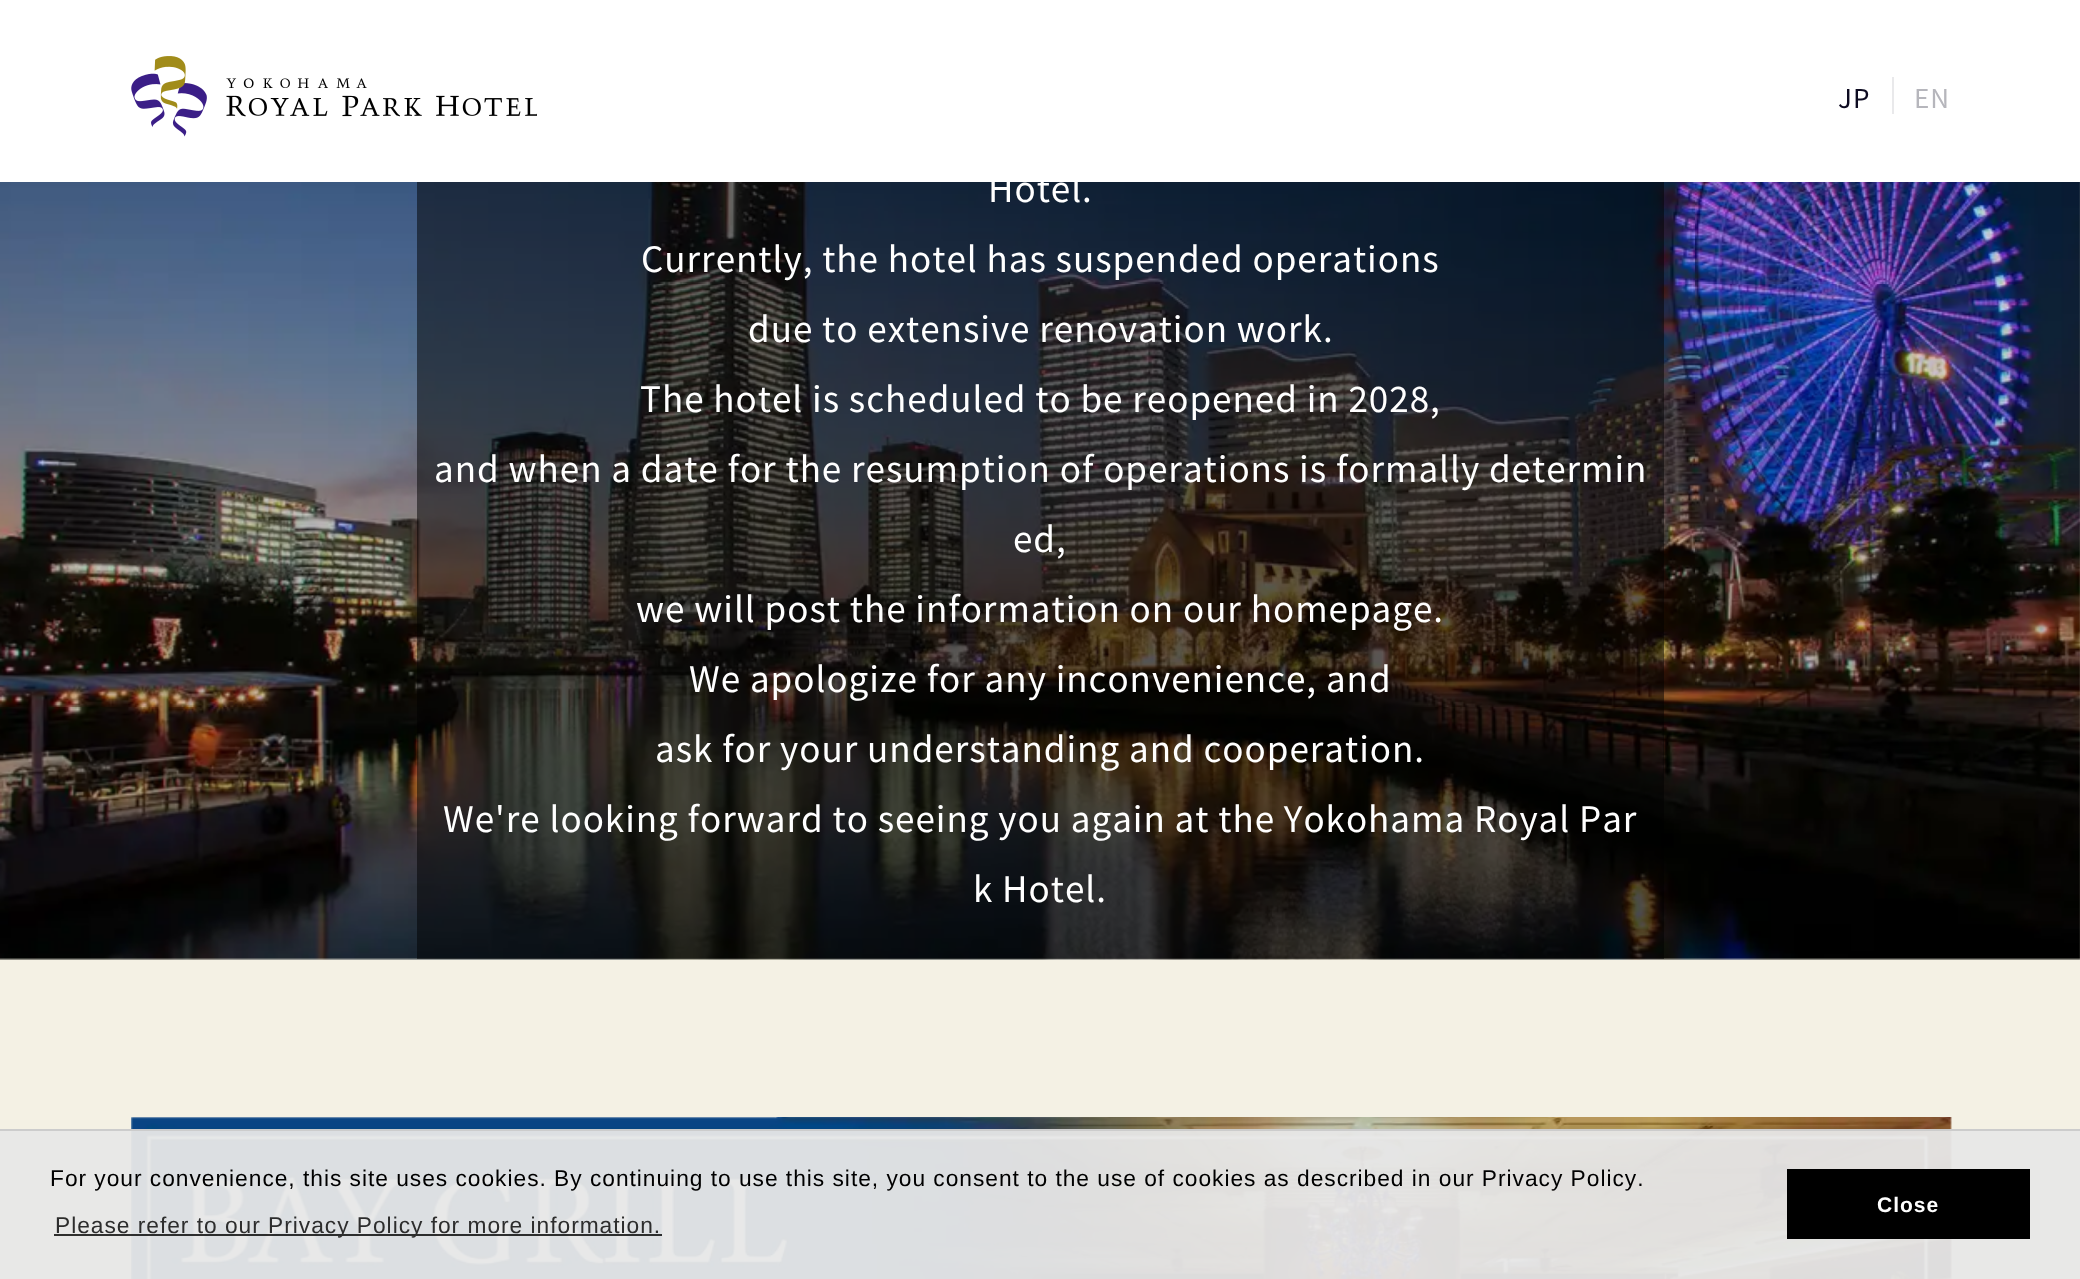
(async () => {
const canvas = document.querySelector("canvas")
canvas.width = 2080
canvas.height = 1279
const c = canvas.getContext("2d")
c.miterLimit = 4
c.fontKerning = "none"
function T(s,x,y){c.fillText(s,x,y)}
function R(x,y,w,h){c.fillRect(x,y,w,h)}
async function I(src,x,y,w,h){const img=new Image();img.src=src;await img.decode();c.drawImage(img,x,y,w,h)}
c.fillStyle="#f4f1e4"
R(0,0,2080,1279)
c.fillStyle="#e8e8e7"
R(0,1131,2080,148)
c.fillStyle="#fff"
R(0,0,2080,182)
await I("1.png",131,56,406,81)
c.letterSpacing="0.98px"
c.font="26px Noto Sans JP"
c.fillStyle="#0d0b21"
T("JP",1838,108)
c.fillStyle="#e9e9eb"
R(1892,77,2,37)
c.fillStyle="#b6b6bc"
T("EN",1914,108)
c.fillStyle="#f8f7e1"
R(0,182,2080,777)
await I("2.png",0,182,2080,778)
c.fillStyle="#00000080"
R(417,182,1247,777)
c.font="35px Noto Sans JP"
c.fillStyle="#fff"
T("Hotel.",988,202)
T("Currently, the hotel has suspended operations",641,272)
T("due to extensive renovation work.",748,342)
T("The hotel is scheduled to be reopened in 2028,",640,412)
T("and when a date for the resumption of operations is formally determin",434,482)
T("ed,",1013,552)
T("we will post the information on our homepage.",636,622)
T("We apologize for any inconvenience, and",689,692)
T("ask for your understanding and cooperation.",655,762)
T("We're looking forward to seeing you again at the Yokohama",443,832)
T("Royal Par",1474,832)
T("k Hotel.",973,902)
await I("3.png",131,1117,1821,162)
c.fillStyle="#ccc"
R(0,1129,2080,2)
c.font="22.75px Liberation Sans"
c.fillStyle="#000"
T("For your convenience, this site uses cookies. By continuing to use this site, you consent to the use of cookies as described in our Privacy Policy.",50,1186)
c.fillStyle="#000000cc"
R(54,1234,608,2)
c.fillStyle="#2d2d2d"
T("Please refer to our Privacy Policy for more information.",55,1233)
c.fillStyle="#000"
R(1787,1169,243,70)
c.font="bold 21px Liberation Sans"
c.fillStyle="#fff"
T("Close",1877,1212)
})()
